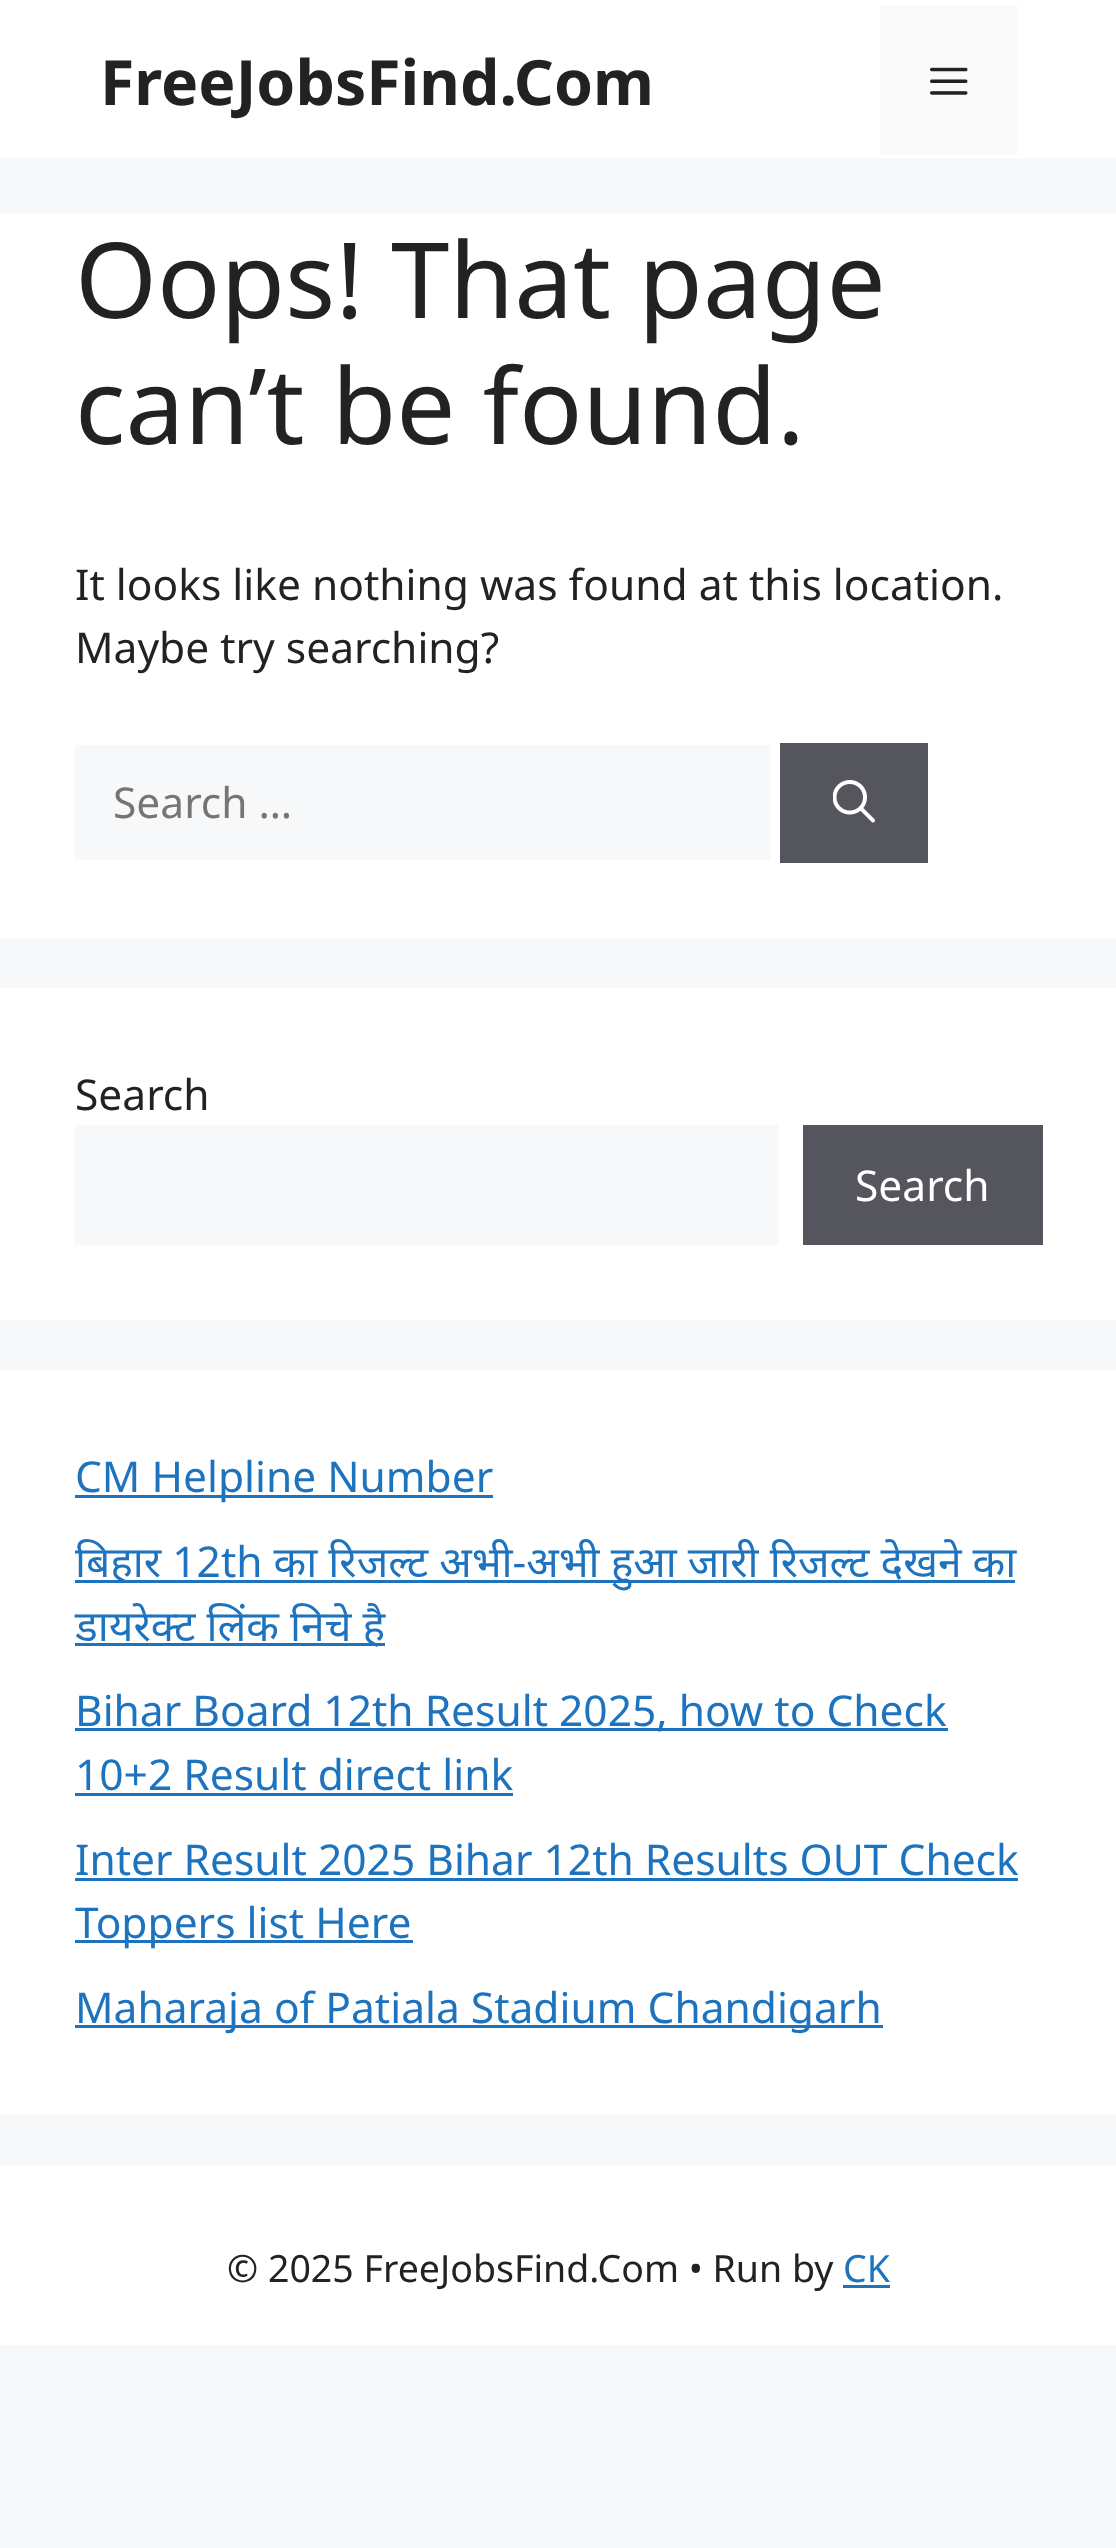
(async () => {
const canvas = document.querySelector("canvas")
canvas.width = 1116
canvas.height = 2548
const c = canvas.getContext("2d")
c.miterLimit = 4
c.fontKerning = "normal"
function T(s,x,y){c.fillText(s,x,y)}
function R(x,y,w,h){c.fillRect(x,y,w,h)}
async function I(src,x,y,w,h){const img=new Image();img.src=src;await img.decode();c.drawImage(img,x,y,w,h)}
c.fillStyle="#f7f8f9"
R(0,0,1116,2548)
c.fillStyle="#fff"
R(0,0,1116,158)
c.font="bold 62.5px Noto Sans"
c.fillStyle="#222"
T("FreeJobsFind.Com",100,105)
c.fillStyle="#fafafa"
R(880,5,138,150)
await I("1.png",930,67,38,28)
c.fillStyle="#fff"
R(0,213,1116,725)
c.font="105px Noto Sans"
c.fillStyle="#222"
T("Oops! That page",75,318)
T("can’t be found.",75,444)
c.font="42.5px Noto Sans"
T("It looks like nothing was found at this location.",75,600)
T("Maybe try searching?",75,663)
c.fillStyle="#f7f8f9"
R(75,745,695,115)
c.fillStyle="#757575"
T("Search …",113,818)
c.fillStyle="#55555e"
R(780,743,148,120)
await I("2.png",833,780,42,43)
c.fillStyle="#fff"
R(0,988,1116,332)
c.fillStyle="#222"
T("Search",75,1110)
c.fillStyle="#f7f8f9"
R(75,1125,703,120)
c.fillStyle="#55555e"
R(803,1125,240,120)
c.fillStyle="#fff"
T("Search",855,1201)
R(0,1370,1116,745)
c.fillStyle="#1e73be"
R(75,1495,418,3)
T("CM Helpline Number",75,1492)
R(75,1580,940,3)
T("बिहार 12th का रिजल्ट अभी-अभी हुआ जारी रिजल्ट देखने का",75,1577)
R(75,1643,310,3)
T("डायरेक्ट लिंक निचे है",75,1641)
R(75,1728,873,3)
T("Bihar Board 12th Result 2025, how to Check",75,1726)
T("10+2 Result direct link",75,1790)
R(75,1793,438,3)
T("Inter Result 2025 Bihar 12th Results OUT Check",75,1875)
R(75,1878,943,3)
R(75,1940,338,3)
T("Toppers list Here",75,1938)
R(75,2025,808,3)
T("Maharaja of Patiala Stadium Chandigarh",75,2023)
c.fillStyle="#fff"
R(0,2165,1116,180)
c.font="37.5px Noto Sans"
c.fillStyle="#222"
T("© 2025 FreeJobsFind.Com • Run by",227,2282)
c.fillStyle="#1e73be"
T("CK",843,2282)
R(843,2285,47,3)
})()
